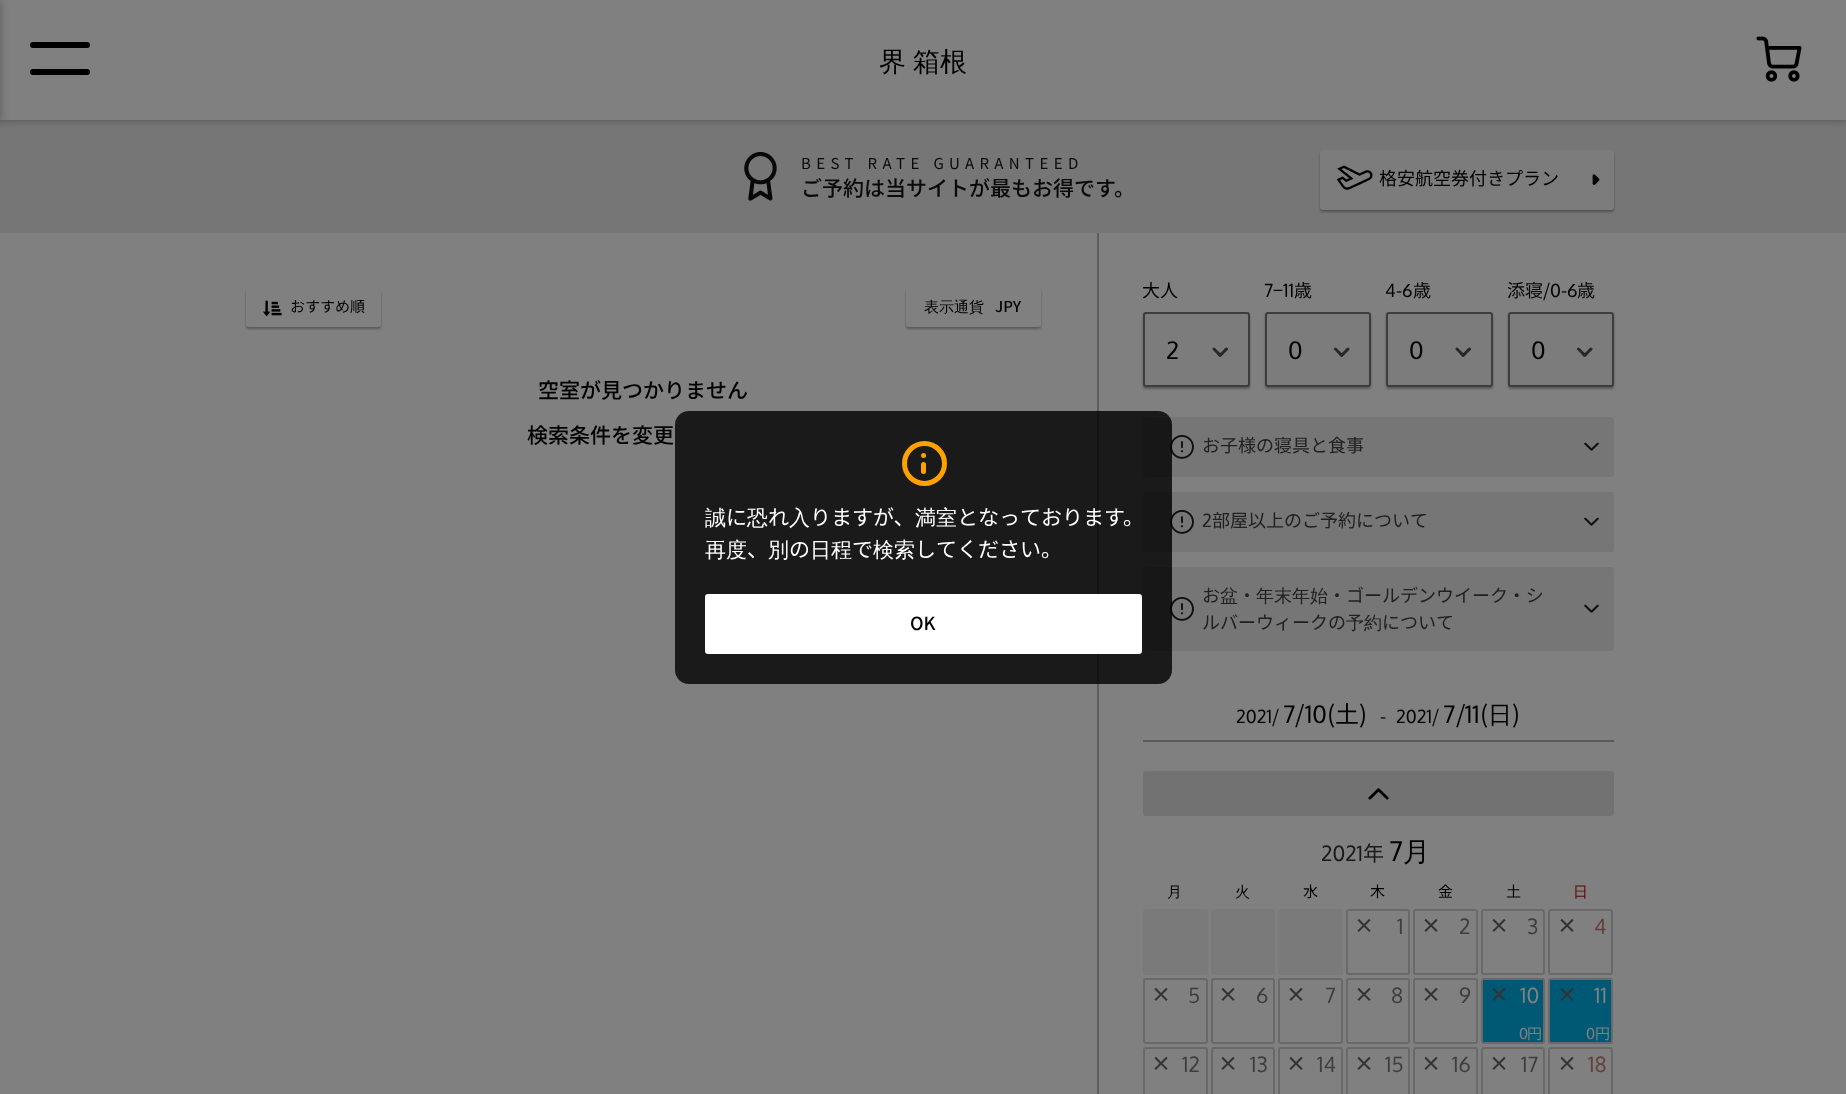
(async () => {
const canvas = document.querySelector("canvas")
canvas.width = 1846
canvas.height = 1094
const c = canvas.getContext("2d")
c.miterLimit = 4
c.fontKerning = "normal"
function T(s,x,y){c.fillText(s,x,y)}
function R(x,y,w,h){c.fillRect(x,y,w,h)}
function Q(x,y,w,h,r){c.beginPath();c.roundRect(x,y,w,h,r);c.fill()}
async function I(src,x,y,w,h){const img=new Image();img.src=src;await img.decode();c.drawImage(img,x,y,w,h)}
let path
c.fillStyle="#808080"
R(0,0,1846,1094)
c.fillStyle="#767676"
R(0,120,1846,113)
c.fillStyle="#0000004d"
c.filter="blur(4px)"
c.beginPath()
c.rect(-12,2,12,120)
c.fill()
c.filter="none"
c.save()
c.beginPath()
c.rect(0,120,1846,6)
c.clip()
c.filter="blur(4px)"
c.beginPath()
c.rect(0,0,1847,120)
c.fill()
c.filter="none"
c.restore()
c.fillStyle="#000"
Q(30,42,60,6,3)
Q(30,69,60,6,3)
c.wordSpacing="-1px"
c.font="500 27px WenQuanYi Zen Hei"
T("界 箱根",879,71)
await I("1.png",1756,36,46,46)
await I("2.png",744,152,33,49)
c.letterSpacing="5.4px"
c.wordSpacing="0px"
c.font="15px Noto Sans JP"
c.fillStyle="#090909"
T("BEST RATE GUARANTEED",801,169)
c.letterSpacing="0px"
c.font="500 21px Noto Sans JP"
T("ご予約は当サイトが最もお得です。",801,196)
c.fillStyle="#0000004d"
c.filter="blur(1px)"
c.beginPath()
c.roundRect(1320,152,294,60,3)
c.fill()
c.filter="none"
c.fillStyle="#7c7c7c"
Q(1320,150,294,60,3)
await I("3.png",1336,165,37,25)
c.font="18px Noto Sans JP"
c.fillStyle="#000"
T("格安航空券付きプラン",1379,185)
await I("4.png",1592,174,8,11)
c.fillStyle="#5d5d5d"
R(1097,233,2,861)
c.fillStyle="#0000004d"
c.filter="blur(1px)"
c.beginPath()
c.roundRect(246,290,135,39,3)
c.fill()
c.filter="none"
c.fillStyle="#808080"
Q(246,288,135,39,3)
await I("5.png",263,300,19,17)
c.font="15px Noto Sans JP"
c.fillStyle="#000"
T("おすすめ順",290,312)
c.fillStyle="#0000004d"
c.filter="blur(1px)"
c.beginPath()
c.roundRect(906,290,135,39,3)
c.fill()
c.filter="none"
c.fillStyle="#808080"
Q(906,288,135,39,3)
c.font="500 15px WenQuanYi Zen Hei"
c.fillStyle="#000"
T("表示通貨",924,312)
c.font="500 15px Noto Sans JP"
T("JPY",995,312)
c.font="500 21px Noto Sans JP"
T("空室が見つかりません",538,398)
T("検索条件を変更",527,443)
c.font="18px Noto Sans JP"
T("大人",1142,297)
c.fillStyle="#0000004d"
c.filter="blur(1px)"
c.beginPath()
c.roundRect(1143,314,107,75,3)
c.fill()
c.filter="none"
c.fillStyle="#7c7c7c"
c.beginPath()
c.roundRect(1144,313,105,73,2)
c.fill()
c.strokeStyle="#3d3d3d"
c.lineWidth=2
c.stroke()
c.font="24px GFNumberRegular"
c.fillStyle="#000"
T("2",1166,359)
c.fillStyle="#282828"
path = new Path2D("M1215 348l3 3c1 1 4.5 3.5 3.5 5c-1.5 2.5-5.5-3-6.5-4l-2.5-2.5c-.5-1.5 1.5-3 2.5-1.5z")
c.fill(path)
path = new Path2D("M1227.5 348c2 1.5-2 4-3 5c-1 1-3.5 5-5.5 3.5c-1.5-2 2.5-4.5 3.5-5.5c1-1 3.5-5 5-3z")
c.fill(path)
c.font="18px GFNumberRegular"
c.fillStyle="#000"
T("7",1264,297)
c.font="18px Noto Sans JP"
T("−",1273,297)
c.font="18px GFNumberRegular"
T("11",1283,297)
c.font="18px Noto Sans JP"
T("歳",1294,297)
c.fillStyle="#0000004d"
c.filter="blur(1px)"
c.beginPath()
c.roundRect(1265,314,106,75,3)
c.fill()
c.filter="none"
c.fillStyle="#7c7c7c"
c.beginPath()
c.roundRect(1266,313,104,73,2)
c.fill()
c.stroke()
c.font="24px GFNumberRegular"
c.fillStyle="#000"
T("0",1288,359)
c.fillStyle="#282828"
path = new Path2D("M1336.5 348l3 3c1 1 4.5 3.5 3.5 5c-1.5 2.5-5.5-3-6.5-4l-2.5-2.5c-.5-1.5 1.5-3 2.5-1.5z")
c.fill(path)
path = new Path2D("M1349 348c2 1.5-2 4-3 5c-1 1-3.5 5-5.5 3.5c-1.5-2 2.5-4.5 3.5-5.5c1-1 3.5-5 5-3z")
c.fill(path)
c.font="18px GFNumberRegular"
c.fillStyle="#000"
T("4",1385,297)
c.font="18px Noto Sans JP"
T("-",1396,297)
c.font="18px GFNumberRegular"
T("6",1402,297)
c.font="18px Noto Sans JP"
T("歳",1413,297)
c.fillStyle="#0000004d"
c.filter="blur(1px)"
c.beginPath()
c.roundRect(1386,314,107,75,3)
c.fill()
c.filter="none"
c.fillStyle="#7c7c7c"
c.beginPath()
c.roundRect(1387,313,105,73,2)
c.fill()
c.stroke()
c.font="24px GFNumberRegular"
c.fillStyle="#000"
T("0",1409,359)
c.fillStyle="#282828"
path = new Path2D("M1458 348l3 3c1 1 4.5 3.5 3.5 5c-1.5 2.5-5.5-3-6.5-4l-2.5-2.5c-.5-1.5 1.5-3 2.5-1.5z")
c.fill(path)
path = new Path2D("M1470.5 348c2 1.5-2 4-3 5c-1 1-3.5 5-5.5 3.5c-1.5-2 2.5-4.5 3.5-5.5c1-1 3.5-5 5-3z")
c.fill(path)
c.font="18px Noto Sans JP"
c.fillStyle="#000"
T("添寝/",1507,297)
c.font="18px GFNumberRegular"
T("0",1550,297)
c.font="18px Noto Sans JP"
T("-",1561,297)
c.font="18px GFNumberRegular"
T("6",1567,297)
c.font="18px Noto Sans JP"
T("歳",1577,297)
c.fillStyle="#0000004d"
c.filter="blur(1px)"
c.beginPath()
c.roundRect(1508,314,106,75,3)
c.fill()
c.filter="none"
c.fillStyle="#7c7c7c"
c.beginPath()
c.roundRect(1509,313,104,73,2)
c.fill()
c.stroke()
c.font="24px GFNumberRegular"
c.fillStyle="#000"
T("0",1531,359)
c.fillStyle="#282828"
path = new Path2D("M1579.5 348l3 3c1 1 4.5 3.5 3.5 5c-1.5 2.5-5.5-3-6.5-4l-2.5-2.5c-.5-1.5 1.5-3 2.5-1.5z")
c.fill(path)
path = new Path2D("M1592 348c2 1.5-2 4-3 5c-1 1-3.5 5-5.5 3.5c-1.5-2 2.5-4.5 3.5-5.5c1-1 3.5-5 5-3z")
c.fill(path)
c.fillStyle="#767676"
Q(1143,417,471,60,3)
await I("6.png",1170,435,24,24)
c.font="18px Noto Sans JP"
c.fillStyle="#202020"
T("お子様の寝具と食事",1202,452)
await I("7.png",1584,442,15,9)
c.fillStyle="#767676"
Q(1143,492,471,60,3)
await I("6.png",1170,510,24,24)
c.font="18px GFNumberRegular"
c.fillStyle="#202020"
T("2",1202,527)
c.font="18px Noto Sans JP"
T("部屋以上のご予約について",1212,527)
await I("7.png",1584,517,15,9)
c.fillStyle="#767676"
Q(1143,567,471,84,3)
await I("6.png",1170,597,24,24)
c.fillStyle="#202020"
T("お",1202,602)
c.font="500 18px WenQuanYi Zen Hei"
T("盆",1220,602)
c.font="18px Noto Sans JP"
T("・",1238,602)
c.font="500 18px WenQuanYi Zen Hei"
T("年末年始",1256,602)
c.font="18px Noto Sans JP"
T("・ゴールデンウイーク・シ",1328,602)
T("ルバーウィークの",1202,629)
c.font="500 18px WenQuanYi Zen Hei"
T("予約",1346,629)
c.font="18px Noto Sans JP"
T("について",1382,629)
await I("7.png",1584,604,15,9)
c.font="18px GFNumberRegular"
c.fillStyle="#000"
T("2021",1236,723)
c.font="18px Noto Sans JP"
T("/",1272,723)
c.font="24px GFNumberRegular"
T("7",1283,723)
c.font="24px Noto Sans JP"
T("/",1295,723)
c.font="24px GFNumberRegular"
T("10",1305,723)
c.font="24px Noto Sans JP"
T("(土)",1327,723)
c.font="18px Noto Sans JP"
T("-",1380,723)
c.font="18px GFNumberRegular"
T("2021",1396,723)
c.font="18px Noto Sans JP"
T("/",1432,723)
c.font="24px GFNumberRegular"
T("7",1443,723)
c.font="24px Noto Sans JP"
T("/",1456,723)
c.font="24px GFNumberRegular"
T("11",1465,723)
c.font="24px Noto Sans JP"
T("(",1480,723)
c.font="500 24px WenQuanYi Zen Hei"
T("日",1488,723)
c.font="24px Noto Sans JP"
T(")",1512,723)
c.fillStyle="#5a5a5a"
R(1143,740,471,2)
c.fillStyle="#727272"
Q(1143,771,471,45,3)
await I("8.png",1368,788,21,12)
c.font="21px GFNumberRegular"
c.fillStyle="#1a1a1a"
T("2021",1321,861)
c.font="21px Noto Sans JP"
T("年",1363,861)
c.font="27px GFNumberRegular"
c.fillStyle="#000"
T("7",1389,861)
c.font="500 27px WenQuanYi Zen Hei"
T("月",1403,861)
c.font="500 15px WenQuanYi Zen Hei"
T("月",1167,897)
T("火",1235,897)
c.font="15px Noto Sans JP"
T("水",1303,897)
T("木",1370,897)
T("金",1438,897)
T("土",1506,897)
c.font="500 15px WenQuanYi Zen Hei"
c.fillStyle="#5d0000"
T("日",1573,897)
c.fillStyle="#7a7a7a"
Q(1143,909,65,66,3)
Q(1211,909,64,66,3)
Q(1278,909,65,66,3)
c.beginPath()
c.roundRect(1347,910,62,64,2)
c.strokeStyle="#696969"
c.stroke()
c.font="bold 20px Noto Sans JP"
c.fillStyle="#333"
T("×",1354,933)
c.font="21px GFNumberRegular"
c.fillStyle="#3e3e3e"
T("1",1397,934)
c.beginPath()
c.roundRect(1414,910,63,64,2)
c.stroke()
c.font="bold 20px Noto Sans JP"
c.fillStyle="#333"
T("×",1421,933)
c.font="21px GFNumberRegular"
c.fillStyle="#3e3e3e"
T("2",1459,934)
c.beginPath()
c.roundRect(1482,910,62,64,2)
c.stroke()
c.font="bold 20px Noto Sans JP"
c.fillStyle="#333"
T("×",1489,933)
c.font="21px GFNumberRegular"
c.fillStyle="#3e3e3e"
T("3",1527,934)
c.beginPath()
c.roundRect(1549,910,63,64,2)
c.stroke()
c.font="bold 20px Noto Sans JP"
c.fillStyle="#333"
T("×",1557,933)
c.font="21px GFNumberRegular"
c.fillStyle="#63403c"
T("4",1594,934)
c.beginPath()
c.roundRect(1144,979,63,64,2)
c.stroke()
c.font="bold 20px Noto Sans JP"
c.fillStyle="#333"
T("×",1151,1002)
c.font="21px GFNumberRegular"
c.fillStyle="#3e3e3e"
T("5",1188,1003)
c.beginPath()
c.roundRect(1212,979,62,64,2)
c.stroke()
c.font="bold 20px Noto Sans JP"
c.fillStyle="#333"
T("×",1218,1002)
c.font="21px GFNumberRegular"
c.fillStyle="#3e3e3e"
T("6",1256,1003)
c.beginPath()
c.roundRect(1279,979,63,64,2)
c.stroke()
c.font="bold 20px Noto Sans JP"
c.fillStyle="#333"
T("×",1286,1002)
c.font="21px GFNumberRegular"
c.fillStyle="#3e3e3e"
T("7",1325,1003)
c.beginPath()
c.roundRect(1347,979,62,64,2)
c.stroke()
c.font="bold 20px Noto Sans JP"
c.fillStyle="#333"
T("×",1354,1002)
c.font="21px GFNumberRegular"
c.fillStyle="#3e3e3e"
T("8",1391,1003)
c.beginPath()
c.roundRect(1414,979,63,64,2)
c.stroke()
c.font="bold 20px Noto Sans JP"
c.fillStyle="#333"
T("×",1421,1002)
c.font="21px GFNumberRegular"
c.fillStyle="#3e3e3e"
T("9",1459,1003)
c.fillStyle="#005974"
c.beginPath()
c.roundRect(1482,979,62,64,2)
c.fill()
c.stroke()
c.font="bold 20px Noto Sans JP"
c.fillStyle="#333"
T("×",1489,1002)
c.font="21px GFNumberRegular"
c.fillStyle="#808080"
T("10",1520,1003)
c.letterSpacing="-1px"
c.font="15px GFNumberRegular"
T("0",1519,1039)
c.font="15px Noto Sans JP"
T("円",1527,1039)
c.fillStyle="#005974"
c.beginPath()
c.roundRect(1549,979,63,64,2)
c.fill()
c.stroke()
c.letterSpacing="0px"
c.font="bold 20px Noto Sans JP"
c.fillStyle="#333"
T("×",1557,1002)
c.font="21px GFNumberRegular"
c.fillStyle="#808080"
T("11",1594,1003)
c.letterSpacing="-1px"
c.font="15px GFNumberRegular"
T("0",1586,1039)
c.font="15px Noto Sans JP"
T("円",1595,1039)
c.beginPath()
c.roundRect(1144,1048,63,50,2)
c.stroke()
c.letterSpacing="0px"
c.font="bold 20px Noto Sans JP"
c.fillStyle="#333"
T("×",1151,1071)
c.font="21px GFNumberRegular"
c.fillStyle="#3e3e3e"
T("12",1182,1072)
c.beginPath()
c.roundRect(1212,1048,62,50,2)
c.stroke()
c.font="bold 20px Noto Sans JP"
c.fillStyle="#333"
T("×",1218,1071)
c.font="21px GFNumberRegular"
c.fillStyle="#3e3e3e"
T("13",1250,1072)
c.beginPath()
c.roundRect(1279,1048,63,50,2)
c.stroke()
c.font="bold 20px Noto Sans JP"
c.fillStyle="#333"
T("×",1286,1071)
c.font="21px GFNumberRegular"
c.fillStyle="#3e3e3e"
T("14",1317,1072)
c.beginPath()
c.roundRect(1347,1048,62,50,2)
c.stroke()
c.font="bold 20px Noto Sans JP"
c.fillStyle="#333"
T("×",1354,1071)
c.font="21px GFNumberRegular"
c.fillStyle="#3e3e3e"
T("15",1385,1072)
c.beginPath()
c.roundRect(1414,1048,63,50,2)
c.stroke()
c.font="bold 20px Noto Sans JP"
c.fillStyle="#333"
T("×",1421,1071)
c.font="21px GFNumberRegular"
c.fillStyle="#3e3e3e"
T("16",1452,1072)
c.beginPath()
c.roundRect(1482,1048,62,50,2)
c.stroke()
c.font="bold 20px Noto Sans JP"
c.fillStyle="#333"
T("×",1489,1071)
c.font="21px GFNumberRegular"
c.fillStyle="#3e3e3e"
T("17",1521,1072)
c.beginPath()
c.roundRect(1549,1048,63,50,2)
c.stroke()
c.font="bold 20px Noto Sans JP"
c.fillStyle="#333"
T("×",1557,1071)
c.font="21px GFNumberRegular"
c.fillStyle="#63403c"
T("18",1588,1072)
c.fillStyle="#000000cc"
Q(675,411,497,273,14)
c.beginPath()
c.arc(924.5,463.5,20,0,7)
c.strokeStyle="#ffa100"
c.lineWidth=5
c.stroke()
c.fillStyle="#ffa100"
c.beginPath()
c.arc(923.5,455.5,2.5,0,7)
c.fill()
Q(921,462,5,12,2.5)
c.font="500 21px WenQuanYi Zen Hei"
c.fillStyle="#fff"
T("誠",705,525)
c.font="21px Noto Sans JP"
T("に",726,525)
c.font="500 21px WenQuanYi Zen Hei"
T("恐",747,525)
c.font="21px Noto Sans JP"
T("れ",768,525)
c.font="500 21px WenQuanYi Zen Hei"
T("入",789,525)
c.font="21px Noto Sans JP"
T("りますが、",810,525)
c.font="500 21px WenQuanYi Zen Hei"
T("満室",915,525)
c.font="21px Noto Sans JP"
T("となっております。",957,525)
c.font="500 21px WenQuanYi Zen Hei"
T("再度",705,557)
c.font="21px Noto Sans JP"
T("、",747,557)
c.font="500 21px WenQuanYi Zen Hei"
T("別",768,557)
c.font="21px Noto Sans JP"
T("の",789,557)
c.font="500 21px WenQuanYi Zen Hei"
T("日程",810,557)
c.font="21px Noto Sans JP"
T("で",852,557)
c.font="500 21px WenQuanYi Zen Hei"
T("検索",873,557)
c.font="21px Noto Sans JP"
T("してください。",915,557)
Q(705,594,437,60,3)
c.font="500 18px Noto Sans JP"
c.fillStyle="#000"
T("OK",910,630)
})()
